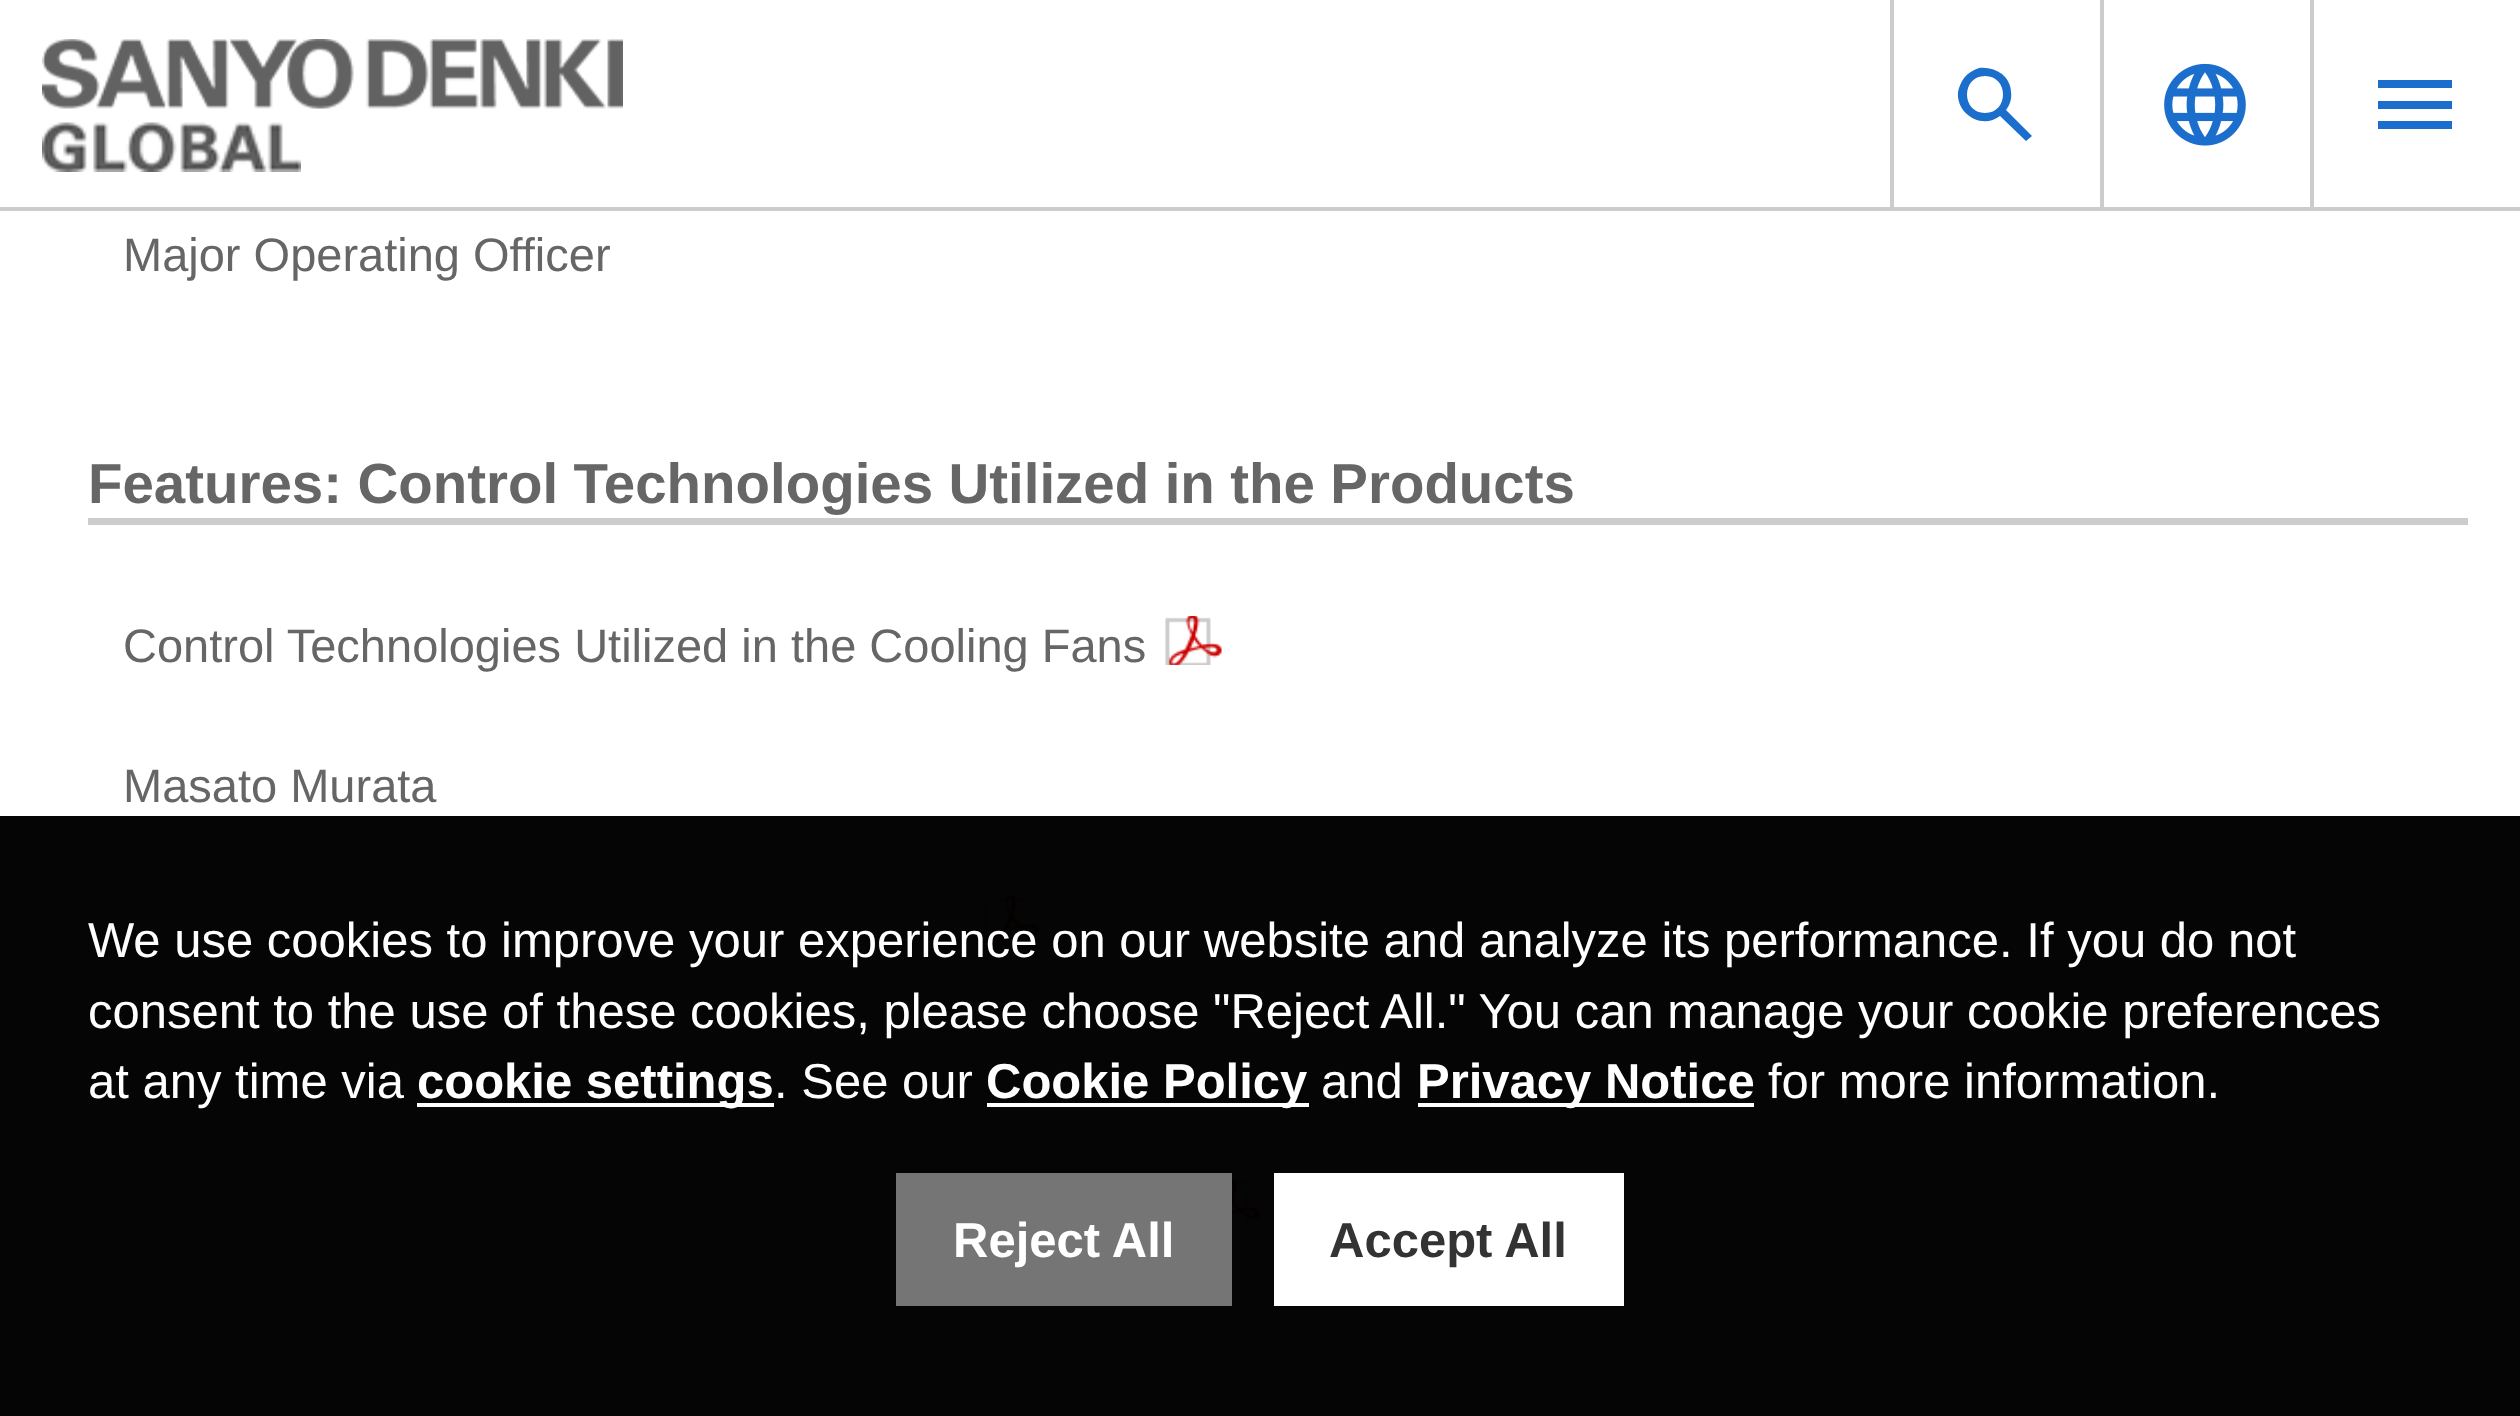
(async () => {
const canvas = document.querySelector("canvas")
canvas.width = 2520
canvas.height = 1416
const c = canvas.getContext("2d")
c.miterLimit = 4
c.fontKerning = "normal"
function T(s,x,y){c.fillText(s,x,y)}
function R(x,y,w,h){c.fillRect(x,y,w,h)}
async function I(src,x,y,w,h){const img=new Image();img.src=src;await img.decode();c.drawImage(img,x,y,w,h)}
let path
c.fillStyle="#fff"
R(0,0,2520,1416)
c.fillStyle="#ccc"
R(0,207,2520,4)
await I("1.png",42,39,581,70)
await I("2.png",42,122,259,50)
R(1890,0,4,210)
c.fillStyle="#1c6ecd"
path = new Path2D("M2026 141l-26-25c-18 14-44-2-42-24c1-5 3-10 6-14c4-5 9-8 15-10c8-1 16 1 23 6c5 4 9 11 9 18c1 6-1 13-5 18l26 26zm-41-28c24 0 24-37 0-37c-24 0-24 37 0 37z")
c.fill(path)
c.fillStyle="#ccc"
R(2100,0,4,210)
await I("3.png",2164,63,82,83)
R(2310,0,4,210)
c.fillStyle="#1c6ecd"
path = new Path2D("M2378 129v-8h74v8zm0-20v-8h74v8zm0-21v-8h74v8z")
c.fill(path)
c.font="47px Liberation Sans"
c.fillStyle="#666"
T("Major Operating Officer",123,271)
c.fillStyle="#ccc"
R(88,518,2380,7)
c.wordSpacing="-0.25px"
c.font="bold 56.45px Liberation Sans"
c.fillStyle="#666"
T("Features: Control Technologies Utilized in the Products",88,503)
c.wordSpacing="0px"
c.font="47px Liberation Sans"
T("Control Technologies Utilized in the Cooling Fans",123,662)
await I("4.png",1165,616,57,49)
T("Masato Murata",123,802)
await I("5.png",983,896,57,49)
await I("6.png",1232,1179,29,50)
c.fillStyle="#000000fa"
R(0,816,2520,600)
c.font="49px Liberation Sans"
c.fillStyle="#fff"
T("We use cookies to improve your experience on our website and analyze its performance. If you do not",88,957)
T("consent to the use of these cookies, please choose \"Reject All.\" You can manage your cookie preferences",88,1028)
T("at any time via",88,1098)
R(417,1103,357,4)
c.font="bold 49px Liberation Sans"
T("cookie settings",417,1098)
c.font="49px Liberation Sans"
T(". See our",774,1098)
R(987,1103,322,4)
c.font="bold 49px Liberation Sans"
T("Cookie Policy",986,1098)
c.font="49px Liberation Sans"
T("and",1321,1098)
R(1418,1103,336,4)
c.font="bold 49px Liberation Sans"
T("Privacy Notice",1417,1098)
c.font="49px Liberation Sans"
T("for more information.",1768,1098)
c.fillStyle="#757575"
R(896,1173,336,133)
c.font="bold 49px Liberation Sans"
c.fillStyle="#fff"
T("Reject All",953,1257)
R(1274,1173,350,133)
c.fillStyle="#333"
T("Accept All",1329,1257)
})()
